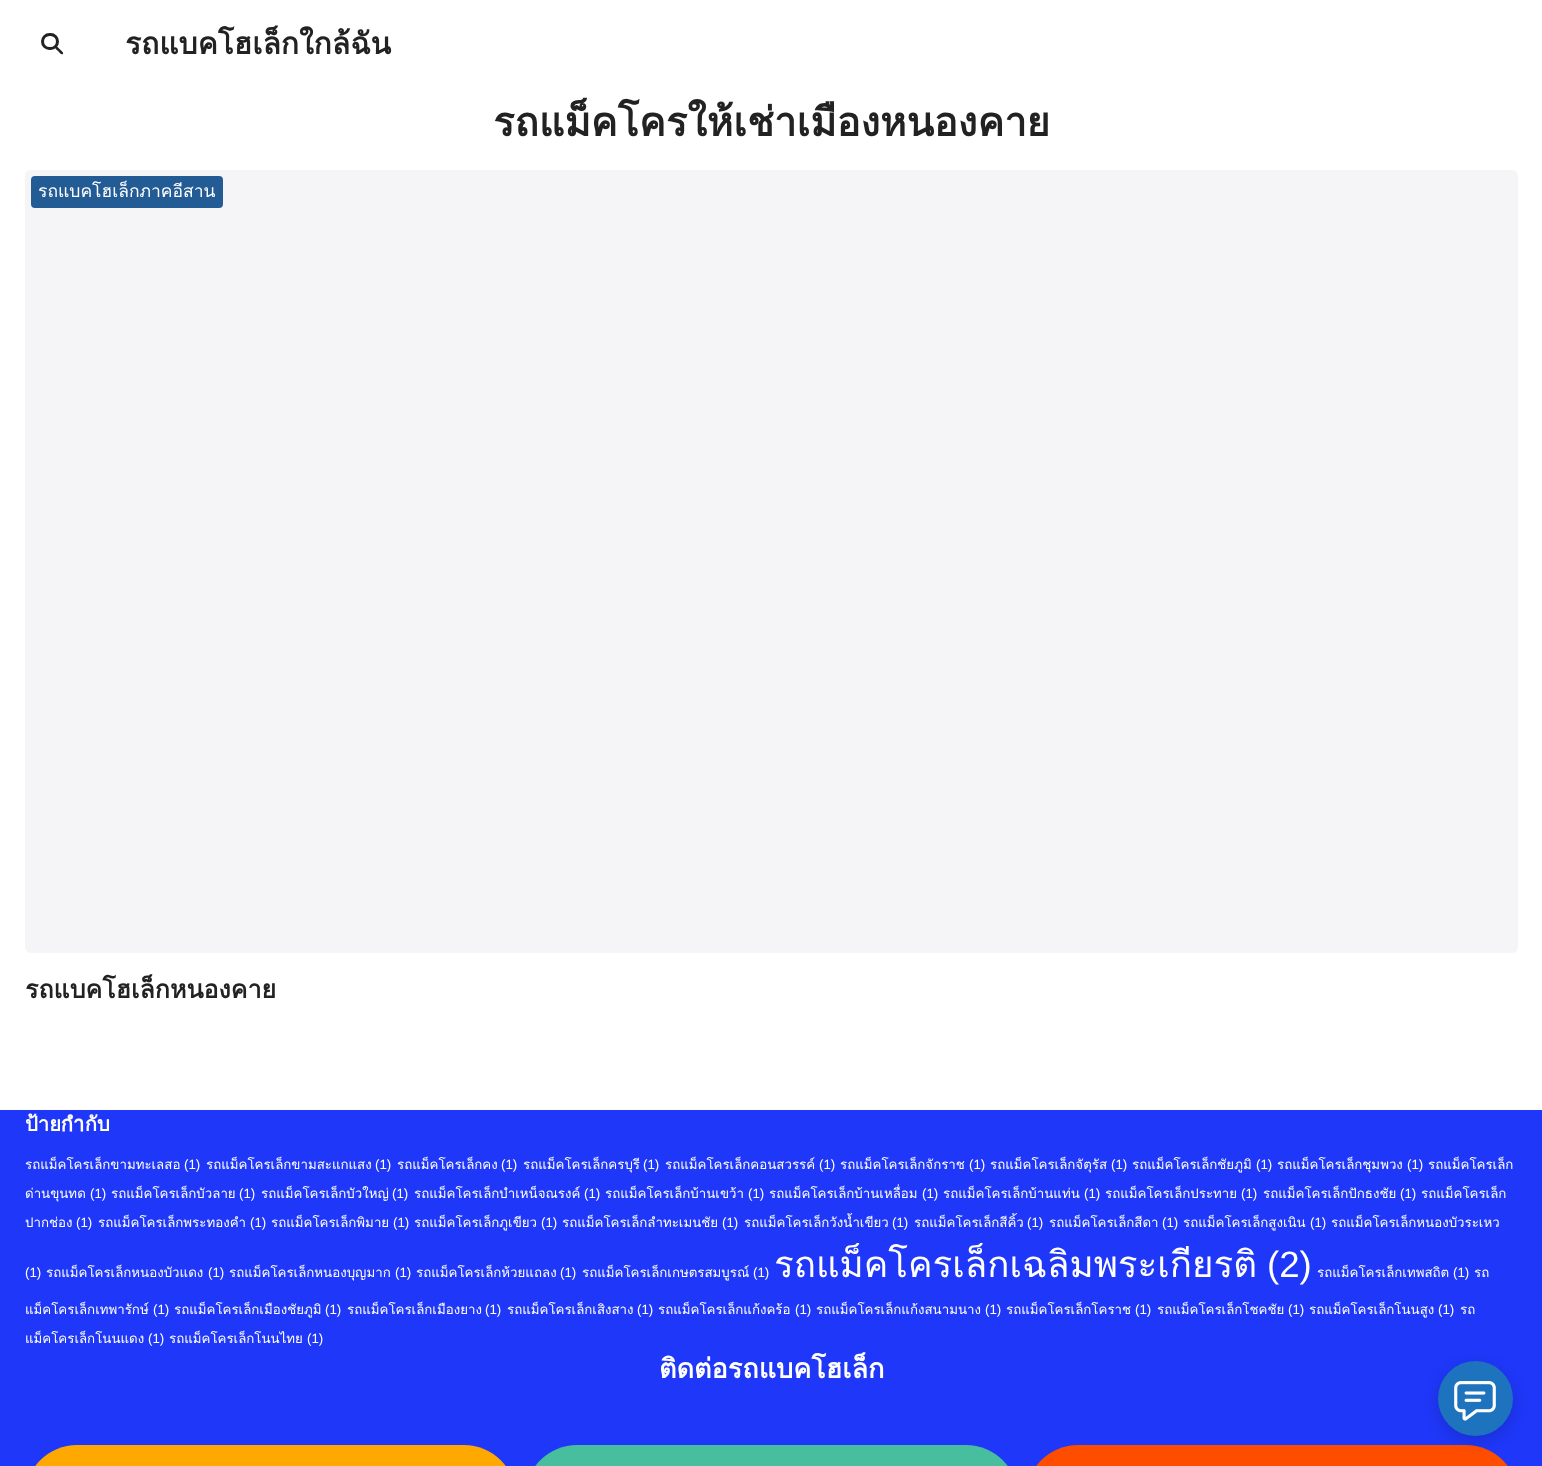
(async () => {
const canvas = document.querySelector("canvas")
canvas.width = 1542
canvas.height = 1466
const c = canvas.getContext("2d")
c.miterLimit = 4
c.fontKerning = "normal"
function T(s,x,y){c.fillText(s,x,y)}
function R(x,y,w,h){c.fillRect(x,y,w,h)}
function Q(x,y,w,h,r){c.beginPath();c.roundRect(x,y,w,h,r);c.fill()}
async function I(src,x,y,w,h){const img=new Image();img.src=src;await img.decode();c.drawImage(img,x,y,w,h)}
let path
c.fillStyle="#fff"
R(0,0,1542,1466)
c.fillStyle="#222"
path = new Path2D("M55.5 46.5c1.5-1.5 3.5 2 4.5 3c.5 .5 4 3 3 4.5c-1.5 1.5-4-2-5-3c-.5-.5-4-3-2.5-4.5z")
c.fill(path)
c.beginPath()
c.roundRect(42.5,34.5,15,14,7)
c.strokeStyle="#222"
c.lineWidth=3
c.stroke()
c.font="bold 30px Loma"
T("รถแบคโฮเล็กใกล้ฉัน",125,54)
c.font="bold 40px Loma"
T("รถแม็คโครให้เช่าเมืองหนองคาย",493,136)
c.fillStyle="#f5f5f7"
Q(25,170,1493,783,6)
c.fillStyle="#235b95"
Q(31,176,192,32,4)
c.font="17.5px Loma"
c.fillStyle="#fff"
T("รถแบคโฮเล็กภาคอีสาน",38,197)
c.font="bold 25px Loma"
c.fillStyle="#222"
T("รถแบคโฮเล็กหนองคาย",25,998)
c.fillStyle="#1f37f8"
R(0,1110,1542,356)
c.font="bold 20.25px Loma"
c.fillStyle="#fff"
T("ป้ายกำกับ",25,1131)
c.font="13.3px Loma"
T("รถแม็คโครเล็กขามทะเลสอ",25,1169)
c.font="13.3px Liberation Sans"
T("(1)",184,1169)
c.font="13.3px Loma"
T("รถแม็คโครเล็กขามสะแกแสง",206,1169)
c.font="13.3px Liberation Sans"
T("(1)",375,1169)
c.font="13.3px Loma"
T("รถแม็คโครเล็กคง",397,1169)
c.font="13.3px Liberation Sans"
T("(1)",501,1169)
c.font="13.3px Loma"
T("รถแม็คโครเล็กครบุรี",523,1169)
c.font="13.3px Liberation Sans"
T("(1)",643,1169)
c.font="13.3px Loma"
T("รถแม็คโครเล็กคอนสวรรค์",665,1169)
c.font="13.3px Liberation Sans"
T("(1)",819,1169)
c.font="13.3px Loma"
T("รถแม็คโครเล็กจักราช",840,1169)
c.font="13.3px Liberation Sans"
T("(1)",969,1169)
c.font="13.3px Loma"
T("รถแม็คโครเล็กจัตุรัส",990,1169)
c.font="13.3px Liberation Sans"
T("(1)",1111,1169)
c.font="13.3px Loma"
T("รถแม็คโครเล็กชัยภูมิ",1132,1169)
c.font="13.3px Liberation Sans"
T("(1)",1256,1169)
c.font="13.3px Loma"
T("รถแม็คโครเล็กชุมพวง",1277,1169)
c.font="13.3px Liberation Sans"
T("(1)",1407,1169)
c.font="13.3px Loma"
T("รถแม็คโครเล็ก",1428,1169)
T("ด่านขุนทด",25,1198)
c.font="13.3px Liberation Sans"
T("(1)",90,1198)
c.font="13.3px Loma"
T("รถแม็คโครเล็กบัวลาย",111,1198)
c.font="13.3px Liberation Sans"
T("(1)",239,1198)
c.font="13.3px Loma"
T("รถแม็คโครเล็กบัวใหญ่",261,1198)
c.font="13.3px Liberation Sans"
T("(1)",392,1198)
c.font="13.3px Loma"
T("รถแม็คโครเล็กบำเหน็จณรงค์",414,1198)
c.font="13.3px Liberation Sans"
T("(1)",584,1198)
c.font="13.3px Loma"
T("รถแม็คโครเล็กบ้านเขว้า",605,1198)
c.font="13.3px Liberation Sans"
T("(1)",748,1198)
c.font="13.3px Loma"
T("รถแม็คโครเล็กบ้านเหลื่อม",769,1198)
c.font="13.3px Liberation Sans"
T("(1)",922,1198)
c.font="13.3px Loma"
T("รถแม็คโครเล็กบ้านแท่น",943,1198)
c.font="13.3px Liberation Sans"
T("(1)",1084,1198)
c.font="13.3px Loma"
T("รถแม็คโครเล็กประทาย",1105,1198)
c.font="13.3px Liberation Sans"
T("(1)",1241,1198)
c.font="13.3px Loma"
T("รถแม็คโครเล็กปักธงชัย",1263,1198)
c.font="13.3px Liberation Sans"
T("(1)",1400,1198)
c.font="13.3px Loma"
T("รถแม็คโครเล็ก",1421,1198)
T("ปากช่อง",25,1227)
c.font="13.3px Liberation Sans"
T("(1)",76,1227)
c.font="13.3px Loma"
T("รถแม็คโครเล็กพระทองคำ",98,1227)
c.font="13.3px Liberation Sans"
T("(1)",250,1227)
c.font="13.3px Loma"
T("รถแม็คโครเล็กพิมาย",271,1227)
c.font="13.3px Liberation Sans"
T("(1)",393,1227)
c.font="13.3px Loma"
T("รถแม็คโครเล็กภูเขียว",414,1227)
c.font="13.3px Liberation Sans"
T("(1)",541,1227)
c.font="13.3px Loma"
T("รถแม็คโครเล็กลำทะเมนชัย",562,1227)
c.font="13.3px Liberation Sans"
T("(1)",722,1227)
c.font="13.3px Loma"
T("รถแม็คโครเล็กวังน้ำเขียว",744,1227)
c.font="13.3px Liberation Sans"
T("(1)",892,1227)
c.font="13.3px Loma"
T("รถแม็คโครเล็กสีคิ้ว",914,1227)
c.font="13.3px Liberation Sans"
T("(1)",1027,1227)
c.font="13.3px Loma"
T("รถแม็คโครเล็กสีดา",1049,1227)
c.font="13.3px Liberation Sans"
T("(1)",1162,1227)
c.font="13.3px Loma"
T("รถแม็คโครเล็กสูงเนิน",1183,1227)
c.font="13.3px Liberation Sans"
T("(1)",1310,1227)
c.font="13.3px Loma"
T("รถแม็คโครเล็กหนองบัวระเหว",1331,1227)
c.font="13.3px Liberation Sans"
T("(1)",25,1277)
c.font="13.3px Loma"
T("รถแม็คโครเล็กหนองบัวแดง",46,1277)
c.font="13.3px Liberation Sans"
T("(1)",208,1277)
c.font="13.3px Loma"
T("รถแม็คโครเล็กหนองบุญมาก",229,1277)
c.font="13.3px Liberation Sans"
T("(1)",395,1277)
c.font="13.3px Loma"
T("รถแม็คโครเล็กห้วยแถลง",416,1277)
c.font="13.3px Liberation Sans"
T("(1)",560,1277)
c.font="13.3px Loma"
T("รถแม็คโครเล็กเกษตรสมบูรณ์",582,1277)
c.font="13.3px Liberation Sans"
T("(1)",753,1277)
c.font="36.7px Loma"
T("รถแม็คโครเล็กเฉลิมพระเกียรติ",774,1277)
c.font="36.7px Liberation Sans"
T("(2)",1267,1277)
c.font="13.3px Loma"
T("รถแม็คโครเล็กเทพสถิต",1317,1277)
c.font="13.3px Liberation Sans"
T("(1)",1453,1277)
c.font="13.3px Loma"
T("รถ",1474,1277)
T("แม็คโครเล็กเทพารักษ์",25,1314)
c.font="13.3px Liberation Sans"
T("(1)",153,1314)
c.font="13.3px Loma"
T("รถแม็คโครเล็กเมืองชัยภูมิ",174,1314)
c.font="13.3px Liberation Sans"
T("(1)",325,1314)
c.font="13.3px Loma"
T("รถแม็คโครเล็กเมืองยาง",347,1314)
c.font="13.3px Liberation Sans"
T("(1)",485,1314)
c.font="13.3px Loma"
T("รถแม็คโครเล็กเสิงสาง",507,1314)
c.font="13.3px Liberation Sans"
T("(1)",637,1314)
c.font="13.3px Loma"
T("รถแม็คโครเล็กแก้งคร้อ",658,1314)
c.font="13.3px Liberation Sans"
T("(1)",795,1314)
c.font="13.3px Loma"
T("รถแม็คโครเล็กแก้งสนามนาง",816,1314)
c.font="13.3px Liberation Sans"
T("(1)",985,1314)
c.font="13.3px Loma"
T("รถแม็คโครเล็กโคราช",1006,1314)
c.font="13.3px Liberation Sans"
T("(1)",1135,1314)
c.font="13.3px Loma"
T("รถแม็คโครเล็กโชคชัย",1157,1314)
c.font="13.3px Liberation Sans"
T("(1)",1288,1314)
c.font="13.3px Loma"
T("รถแม็คโครเล็กโนนสูง",1309,1314)
c.font="13.3px Liberation Sans"
T("(1)",1438,1314)
c.font="13.3px Loma"
T("รถ",1460,1314)
T("แม็คโครเล็กโนนแดง",25,1343)
c.font="13.3px Liberation Sans"
T("(1)",148,1343)
c.font="13.3px Loma"
T("รถแม็คโครเล็กโนนไทย",169,1343)
c.font="13.3px Liberation Sans"
T("(1)",307,1343)
c.font="bold 27px Loma"
T("ติดต่อรถแบคโฮเล็ก",659,1378)
c.fillStyle="#ffa900"
Q(25,1445,491,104,83)
c.fillStyle="#47be9d"
Q(525,1445,493,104,83)
c.fillStyle="#ff4d00"
Q(1026,1445,492,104,83)
c.fillStyle="#00000026"
c.filter="blur(7.5px)"
c.beginPath()
c.roundRect(1438,1366,75,75,37.5)
c.fill()
c.filter="none"
c.fillStyle="#1e73be"
c.beginPath()
c.arc(1475.5,1398.5,37.5,0,7)
c.fill()
await I("1.png",1454,1381,42,40)
})()
